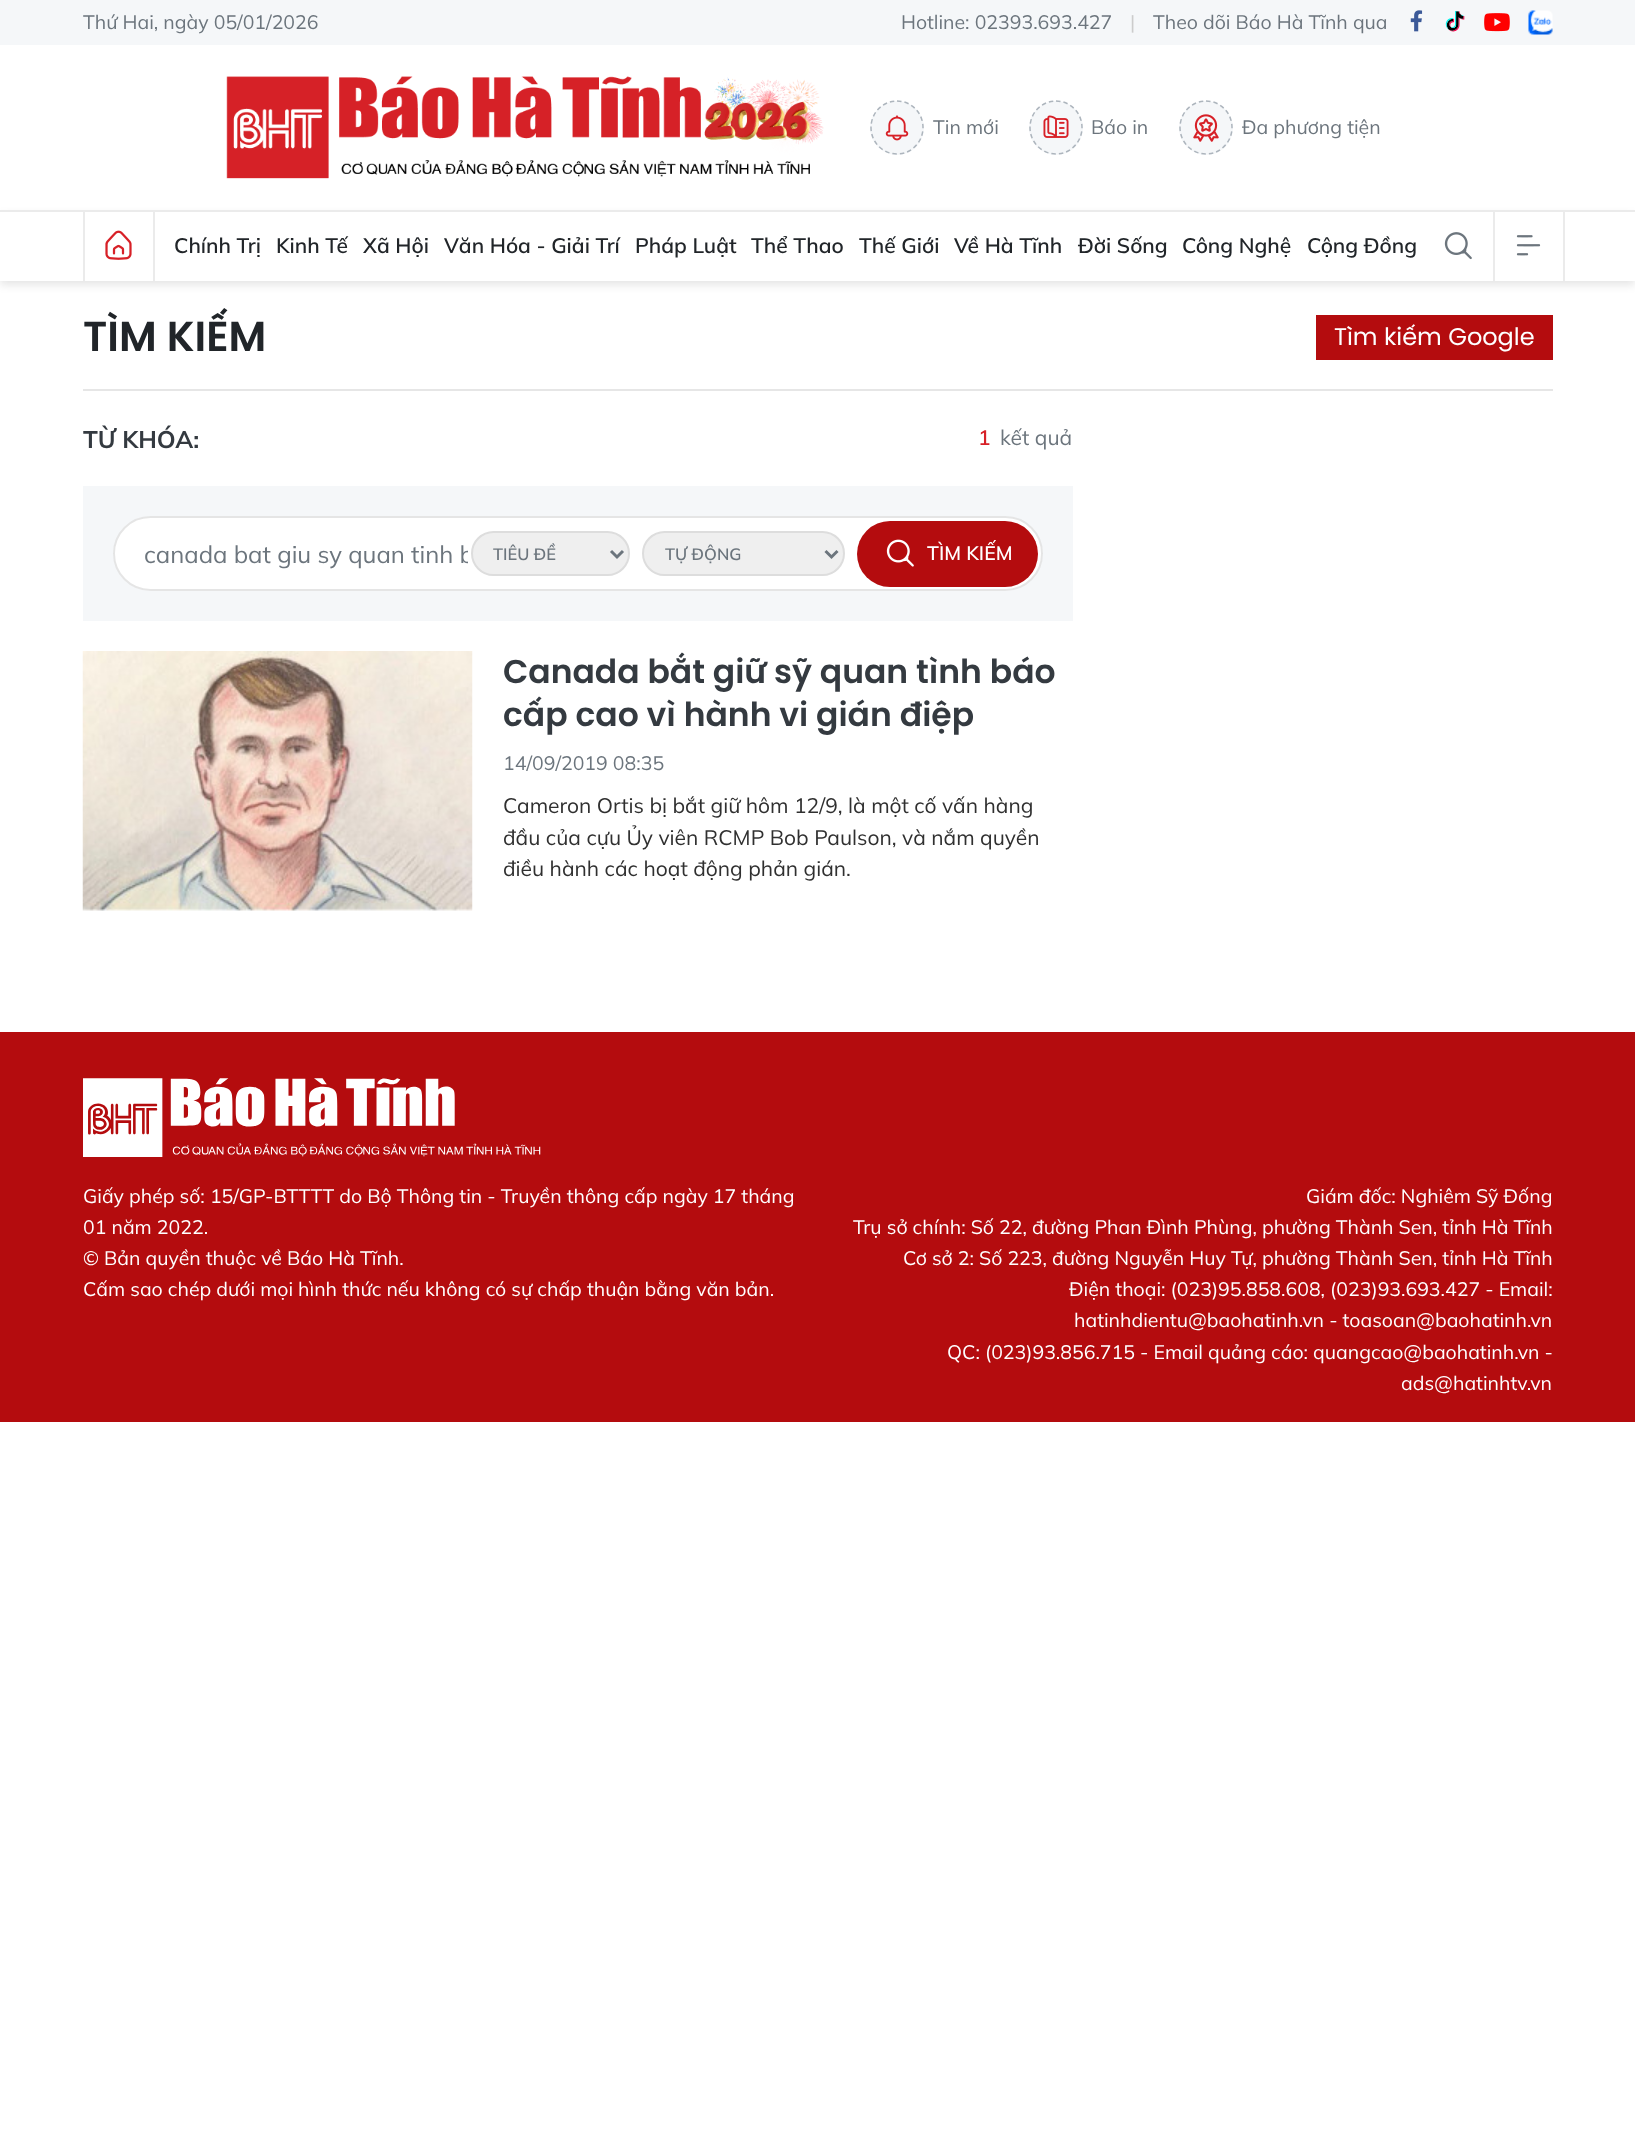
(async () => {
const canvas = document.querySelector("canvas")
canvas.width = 1635
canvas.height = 2129
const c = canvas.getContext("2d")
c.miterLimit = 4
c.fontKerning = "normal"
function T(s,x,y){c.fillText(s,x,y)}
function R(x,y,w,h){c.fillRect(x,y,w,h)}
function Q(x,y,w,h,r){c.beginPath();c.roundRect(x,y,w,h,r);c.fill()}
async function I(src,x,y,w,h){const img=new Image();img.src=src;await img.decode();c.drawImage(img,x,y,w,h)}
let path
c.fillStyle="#fff"
R(0,0,1635,2129)
c.fillStyle="#f5f7f9"
R(0,0,1635,45)
c.font="19.5px Mulish"
c.fillStyle="#6c757d"
T("Thứ Hai, ngày 05/01/2026",83,29)
T("Hotline: 02393.693.427",901,29)
c.fillStyle="#ccc"
T("|",1130,29)
c.fillStyle="#6c757d"
T("Theo dõi Báo Hà Tĩnh qua",1153,29)
await I("1.png",1410,10,13,22)
await I("2.png",1445,11,20,21)
await I("3.png",1484,13,26,19)
await I("4.png",1528,10,25,25)
await I("5.png",226,76,598,103)
c.fillStyle="#f5f7f9"
c.beginPath()
c.arc(897,128,27,0,7)
c.fill()
path = new Path2D("M897 101c14.5 0 26 12 26 26.5c0 14.5-11.5 26.5-26 26.5c-14.5 0-26-12-26-26.5c0-14.5 11.5-26.5 26-26.5z")
c.strokeStyle="#adb5bd"
c.lineWidth=1.5
c.setLineDash([4.5,3])
c.stroke(path)
await I("6.png",885,115,24,26)
c.fillStyle="#6c757d"
T("Tin mới",933,134)
c.fillStyle="#f5f7f9"
c.beginPath()
c.arc(1056,128,27,0,7)
c.fill()
path = new Path2D("M1056 101c14.5 0 26 12 26 26.5c0 14.5-11.5 26.5-26 26.5c-14.5 0-26-12-26-26.5c0-14.5 11.5-26.5 26-26.5z")
c.stroke(path)
await I("7.png",1043,115,26,23)
c.fillStyle="#6c757d"
T("Báo in",1091,134)
c.fillStyle="#f5f7f9"
c.beginPath()
c.arc(1206,128,27,0,7)
c.fill()
path = new Path2D("M1206 101c14.5 0 26 12 26 26.5c0 14.5-11.5 26.5-26 26.5c-14.5 0-26-12-26-26.5c0-14.5 11.5-26.5 26-26.5z")
c.stroke(path)
await I("8.png",1193,114,26,28)
c.fillStyle="#6c757d"
T("Đa phương tiện",1242,134)
c.fillStyle="#0000001a"
c.filter="blur(4px)"
c.beginPath()
c.rect(0,215,1635,70)
c.fill()
c.filter="none"
c.fillStyle="#fff"
R(0,212,1635,69)
c.fillStyle="#ebebeb"
R(0,210,1635,2)
R(153,212,2,69)
R(83,212,2,69)
await I("9.png",105,230,27,30)
c.font="600 21px Mulish"
c.fillStyle="#212529"
T("Chính Trị",174,253)
T("Kinh Tế",276,253)
T("Xã Hội",363,253)
T("Văn Hóa - Giải Trí",444,253)
T("Pháp Luật",635,253)
T("Thể Thao",751,253)
T("Thế Giới",859,253)
T("Về Hà Tĩnh",954,253)
T("Đời Sống",1078,253)
T("Công Nghệ",1182,253)
T("Cộng Đồng",1307,253)
await I("10.png",1444,232,28,28)
c.fillStyle="#ebebeb"
R(1563,212,2,69)
R(1493,212,2,69)
await I("11.png",1516,235,25,21)
c.fillStyle="#e6e6e6"
R(83,389,1470,2)
c.font="600 42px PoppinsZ"
c.fillStyle="#212529"
T("TÌM KIẾM",83,351)
c.fillStyle="#b40c0e"
R(1316,315,237,45)
c.font="24px PoppinsZ"
c.fillStyle="#fff"
T("Tìm kiếm Google",1334,345)
c.font="bold 24px Mulish"
c.fillStyle="#343a40"
T("TỪ KHÓA:",83,448)
c.font="600 21px Mulish"
c.fillStyle="#d72027"
T("1",978,445)
c.font="21px Mulish"
c.fillStyle="#6c757d"
T("kết quả",1000,445)
c.fillStyle="#f5f7f9"
R(83,486,990,135)
c.fillStyle="#fff"
Q(113,516,930,75,37.5)
c.beginPath()
c.roundRect(114,517,928,73,36.5)
c.strokeStyle="#0000001a"
c.lineWidth=2
c.setLineDash([])
c.stroke()
c.save()
c.beginPath()
c.rect(144,536,324,36)
c.clip()
c.font="24px Mulish"
c.fillStyle="#6c757d"
T("canada bat giu sy quan tinh b",144,563)
c.restore()
c.fillStyle="#efefef"
c.beginPath()
c.roundRect(472,532,157,43,21.5)
c.fill()
c.strokeStyle="#ddd"
c.stroke()
path = new Path2D("M611 551l6 6l6-6")
c.strokeStyle="#6c757d"
c.lineWidth=3
c.stroke(path)
c.font="600 16.5px Mulish"
c.fillStyle="#6c757d"
T("TIÊU ĐỀ",493,560)
c.fillStyle="#efefef"
c.beginPath()
c.roundRect(643,532,201,43,21.5)
c.fill()
c.strokeStyle="#ddd"
c.lineWidth=2
c.stroke()
path = new Path2D("M825.5 551l6 6l6-6")
c.strokeStyle="#6c757d"
c.lineWidth=3
c.stroke(path)
c.fillStyle="#6c757d"
T("TỰ ĐỘNG",665,560)
c.fillStyle="#b40c0e"
Q(857,521,181,66,33)
await I("12.png",886,539,28,28)
c.font="600 19.5px Mulish"
c.fillStyle="#fff"
T("TÌM KIẾM",927,560)
await I("13.png",82,651,391,260)
c.font="600 33px PoppinsZ"
c.fillStyle="#343a40"
T("Canada bắt giữ sỹ quan tình báo",503,683)
T("cấp cao vì hành vi gián điệp",503,726)
c.font="19.5px Mulish"
c.fillStyle="#6c757d"
T("14/09/2019 08:35",503,770)
c.font="21px Mulish"
c.fillStyle="#303030"
T("Cameron Ortis bị bắt giữ hôm 12/9, là một cố vấn hàng",503,813)
T("đầu của cựu Ủy viên RCMP Bob Paulson, và nắm quyền",503,845)
T("điều hành các hoạt động phản gián.",503,876)
c.fillStyle="#b40c0e"
R(0,1032,1635,390)
await I("14.png",83,1078,458,79)
c.font="19.5px Mulish"
c.fillStyle="#fff"
T("Giấy phép số: 15/GP-BTTTT do Bộ Thông tin - Truyền thông cấp ngày 17 tháng",83,1203)
T("01 năm 2022.",83,1234)
T("© Bản quyền thuộc về Báo Hà Tĩnh.",83,1265)
T("Cấm sao chép dưới mọi hình thức nếu không có sự chấp thuận bằng văn bản.",83,1296)
T("Giám đốc: Nghiêm Sỹ Đống",1306,1203)
T("Trụ sở chính: Số 22, đường Phan Đình Phùng, phường Thành Sen, tỉnh Hà Tĩnh",853,1234)
T("Cơ sở 2: Số 223, đường Nguyễn Huy Tự, phường Thành Sen, tỉnh Hà Tĩnh",903,1265)
T("Điện thoại: (023)95.858.608, (023)93.693.427 - Email:",1069,1296)
T("hatinhdientu@baohatinh.vn - toasoan@baohatinh.vn",1074,1327)
T("QC: (023)93.856.715 - Email quảng cáo: quangcao@baohatinh.vn -",947,1359)
T("ads@hatinhtv.vn",1401,1390)
})()
